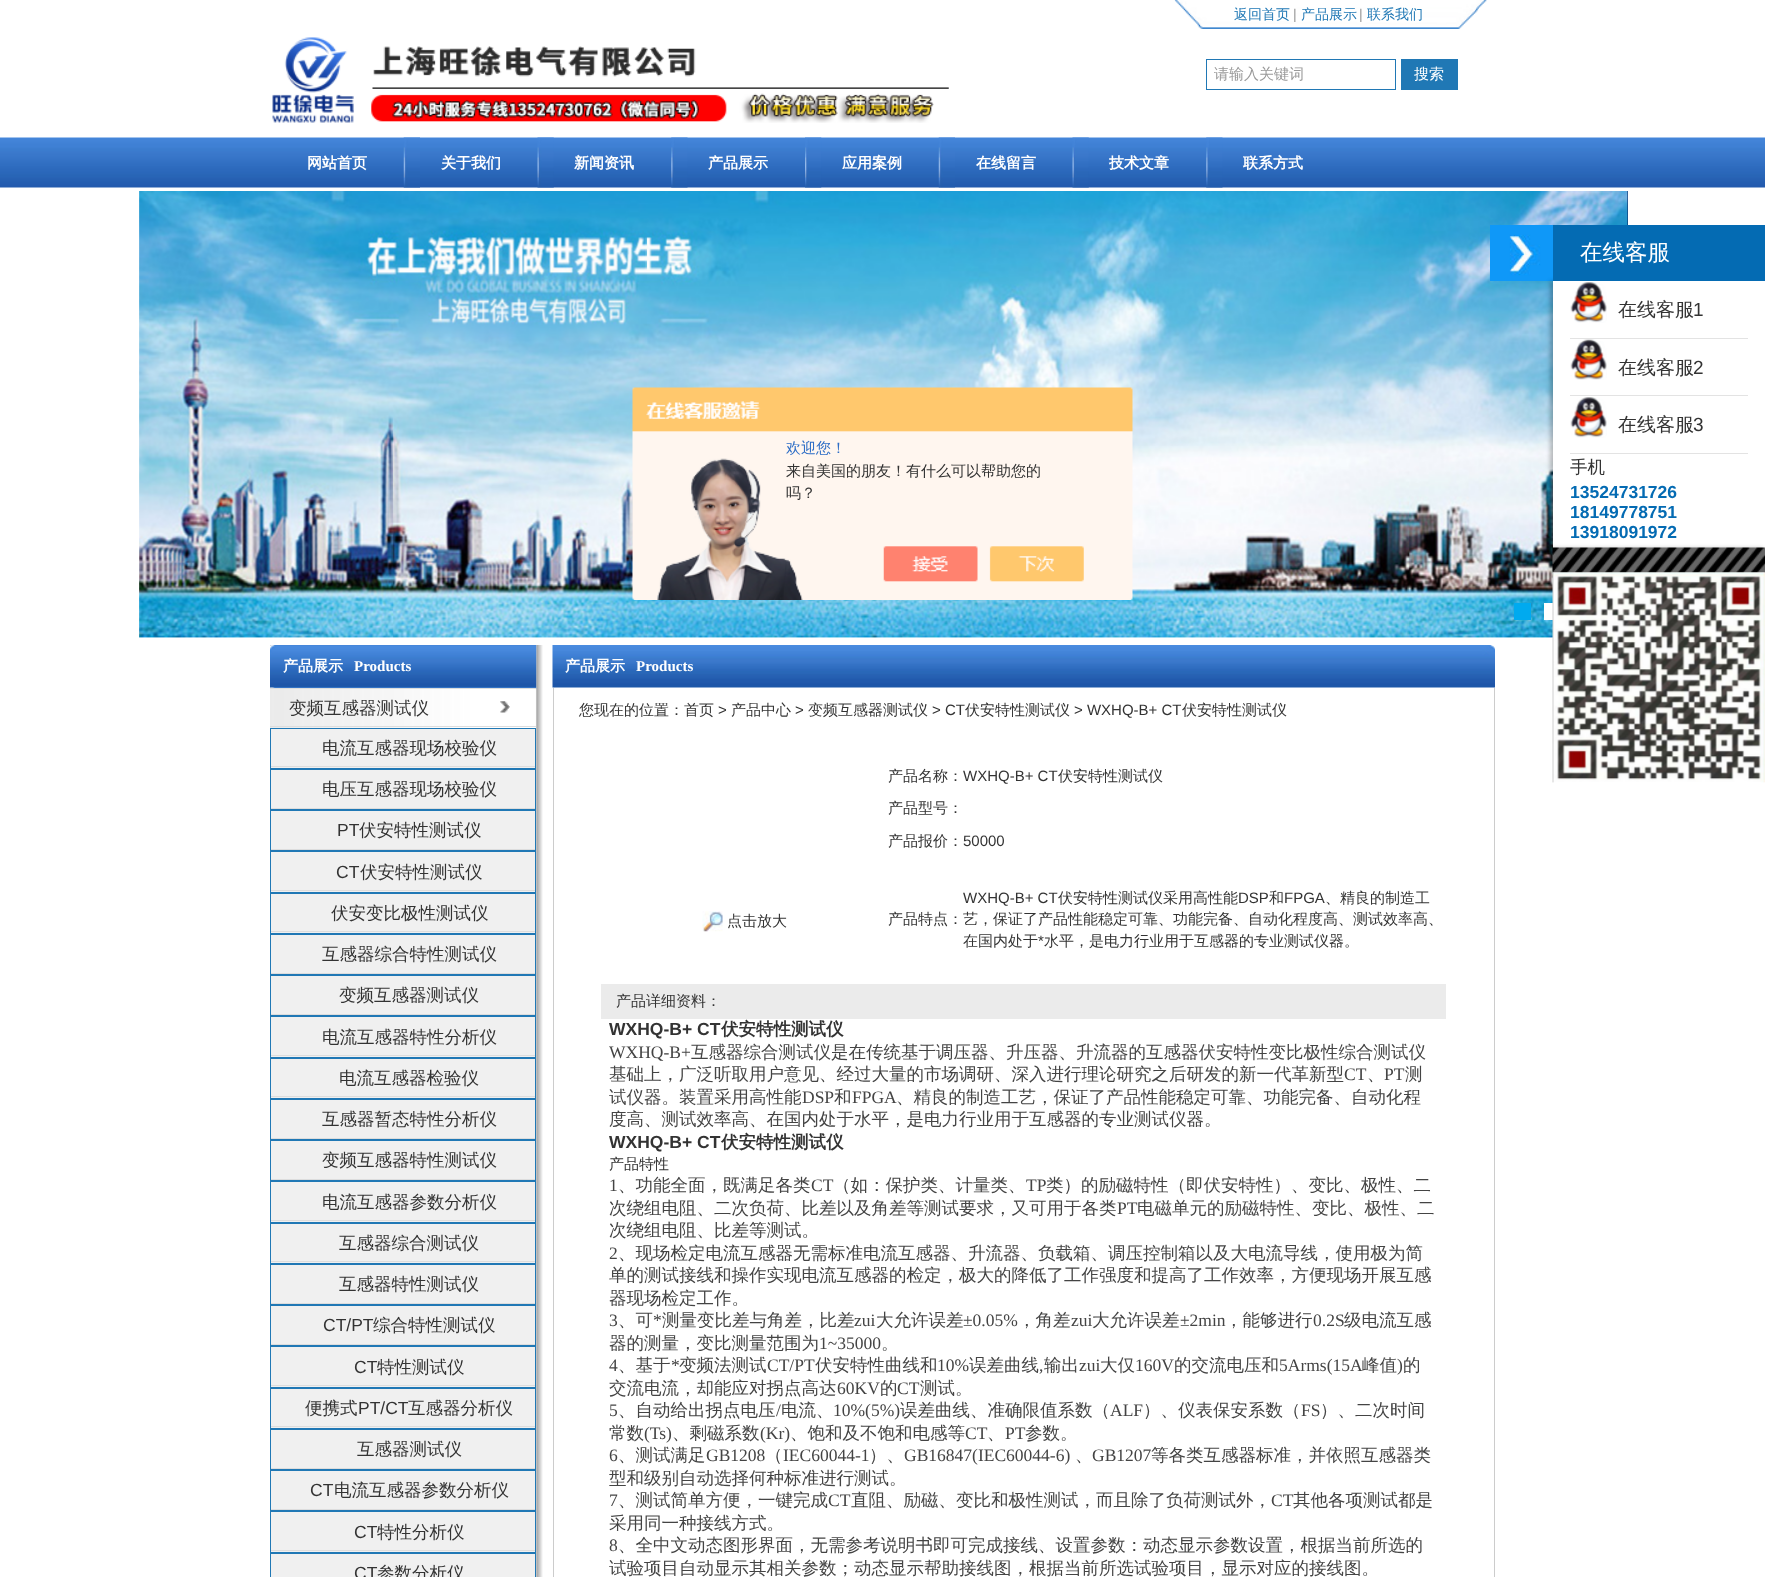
(async () => {
const canvas = document.querySelector("canvas")
canvas.width = 1765
canvas.height = 1577
const c = canvas.getContext("2d")
c.miterLimit = 4
c.fontKerning = "normal"
function T(s,x,y){c.fillText(s,x,y)}
function R(x,y,w,h){c.fillRect(x,y,w,h)}
async function I(src,x,y,w,h){const img=new Image();img.src=src;await img.decode();c.drawImage(img,x,y,w,h)}
c.fillStyle="#fff"
R(0,0,1765,1577)
await I("1.png",1174,0,313,29)
c.font="500 14px WenQuanYi Zen Hei"
c.fillStyle="#2078b5"
T("返回首页",1234,19)
c.font="14px Liberation Sans"
c.fillStyle="#999"
T("|",1293,19)
c.font="500 14px WenQuanYi Zen Hei"
c.fillStyle="#2078b5"
T("产品展示",1301,19)
c.font="14px Liberation Sans"
c.fillStyle="#999"
T("|",1359,19)
c.font="500 14px WenQuanYi Zen Hei"
c.fillStyle="#2078b5"
T("联系我们",1367,19)
await I("2.png",272,37,677,86)
c.strokeStyle="#2078b5"
c.strokeRect(1206.5,59.5,189,30)
c.font="500 15px WenQuanYi Zen Hei"
c.fillStyle="#999"
T("请输入关键词",1214,79)
c.fillStyle="#2078b5"
R(1401,59,57,31)
c.fillStyle="#fff"
T("搜索",1414,79)
await I("3.png",0,137,1765,51)
c.font="bold 15px WenQuanYi Zen Hei"
T("网站首页",307,168)
await I("4.png",403,137,17,51)
T("关于我们",441,168)
await I("5.png",537,137,17,51)
T("新闻资讯",574,168)
await I("6.png",671,137,17,51)
T("产品展示",708,168)
await I("7.png",805,137,17,51)
T("应用案例",842,168)
await I("4.png",938,137,17,51)
T("在线留言",976,168)
await I("5.png",1072,137,17,51)
T("技术文章",1109,168)
await I("6.png",1206,137,17,51)
T("联系方式",1243,168)
await I("8.png",139,191,1489,447)
await I("9.png",1627,191,1,34)
c.fillStyle="#00aaef"
R(1514,603,17,17)
c.fillStyle="#fff"
R(1544,603,9,17)
await I("10.png",270,645,273,932)
await I("11.png",270,645,267,44)
c.fillStyle="#ddd"
R(270,688,266,1)
c.fillStyle="#fff"
T("产品展示",283,671)
c.font="bold 15px Liberation Serif"
T("Products",354,671)
await I("12.png",500,701,10,12)
c.fillStyle="#ddd"
R(270,726,266,1)
c.font="500 17.5px WenQuanYi Zen Hei"
c.fillStyle="#333"
T("变频互感器测试仪",289,714)
c.fillStyle="#f0f0f0"
R(271,729,264,848)
c.strokeRect(270.5,728.5,265,40)
c.fillStyle="#ddd"
R(271,766,264,1)
c.fillStyle="#333"
T("电流互感器现场校验仪",322,754)
c.strokeRect(270.5,769.5,265,40)
c.fillStyle="#ddd"
R(271,808,264,1)
c.fillStyle="#333"
T("电压互感器现场校验仪",322,795)
c.strokeRect(270.5,810.5,265,40)
c.fillStyle="#ddd"
R(271,849,264,1)
c.font="17.5px Liberation Sans"
c.fillStyle="#333"
T("PT",337,836)
c.font="500 17.5px WenQuanYi Zen Hei"
T("伏安特性测试仪",359,836)
c.strokeRect(270.5,851.5,265,41)
c.fillStyle="#ddd"
R(271,890,264,1)
c.font="17.5px Liberation Sans"
c.fillStyle="#333"
T("CT",336,878)
c.font="500 17.5px WenQuanYi Zen Hei"
T("伏安特性测试仪",360,878)
c.strokeRect(270.5,893.5,265,40)
c.fillStyle="#ddd"
R(271,931,264,1)
c.fillStyle="#333"
T("伏安变比极性测试仪",331,919)
c.strokeRect(270.5,934.5,265,40)
c.fillStyle="#ddd"
R(271,973,264,1)
c.fillStyle="#333"
T("互感器综合特性测试仪",322,960)
c.strokeRect(270.5,975.5,265,40)
c.fillStyle="#ddd"
R(271,1014,264,1)
c.fillStyle="#333"
T("变频互感器测试仪",339,1001)
c.strokeRect(270.5,1016.5,265,41)
c.fillStyle="#ddd"
R(271,1055,264,1)
c.fillStyle="#333"
T("电流互感器特性分析仪",322,1043)
c.strokeRect(270.5,1058.5,265,40)
c.fillStyle="#ddd"
R(271,1096,264,1)
c.fillStyle="#333"
T("电流互感器检验仪",339,1084)
c.strokeRect(270.5,1099.5,265,40)
c.fillStyle="#ddd"
R(271,1138,264,1)
c.fillStyle="#333"
T("互感器暂态特性分析仪",322,1125)
c.strokeRect(270.5,1140.5,265,40)
c.fillStyle="#ddd"
R(271,1179,264,1)
c.fillStyle="#333"
T("变频互感器特性测试仪",322,1166)
c.strokeRect(270.5,1181.5,265,41)
c.fillStyle="#ddd"
R(271,1220,264,1)
c.fillStyle="#333"
T("电流互感器参数分析仪",322,1208)
c.strokeRect(270.5,1223.5,265,40)
c.fillStyle="#ddd"
R(271,1261,264,1)
c.fillStyle="#333"
T("互感器综合测试仪",339,1249)
c.strokeRect(270.5,1264.5,265,40)
c.fillStyle="#ddd"
R(271,1303,264,1)
c.fillStyle="#333"
T("互感器特性测试仪",339,1290)
c.strokeRect(270.5,1305.5,265,40)
c.fillStyle="#ddd"
R(271,1344,264,1)
c.font="17.5px Liberation Sans"
c.fillStyle="#333"
T("CT/PT",323,1331)
c.font="500 17.5px WenQuanYi Zen Hei"
T("综合特性测试仪",373,1331)
c.strokeRect(270.5,1346.5,265,41)
c.fillStyle="#ddd"
R(271,1385,264,1)
c.font="17.5px Liberation Sans"
c.fillStyle="#333"
T("CT",354,1373)
c.font="500 17.5px WenQuanYi Zen Hei"
T("特性测试仪",377,1373)
c.strokeRect(270.5,1388.5,265,40)
c.fillStyle="#ddd"
R(271,1426,264,1)
c.fillStyle="#333"
T("便携式",305,1414)
c.font="17.5px Liberation Sans"
T("PT/CT",358,1414)
c.font="500 17.5px WenQuanYi Zen Hei"
T("互感器分析仪",408,1414)
c.strokeRect(270.5,1429.5,265,40)
c.fillStyle="#ddd"
R(271,1468,264,1)
c.fillStyle="#333"
T("互感器测试仪",357,1455)
c.strokeRect(270.5,1470.5,265,40)
c.fillStyle="#ddd"
R(271,1509,264,1)
c.font="17.5px Liberation Sans"
c.fillStyle="#333"
T("CT",310,1496)
c.font="500 17.5px WenQuanYi Zen Hei"
T("电流互感器参数分析仪",334,1496)
c.strokeRect(270.5,1511.5,265,41)
c.fillStyle="#ddd"
R(271,1550,264,1)
c.font="17.5px Liberation Sans"
c.fillStyle="#333"
T("CT",354,1538)
c.font="500 17.5px WenQuanYi Zen Hei"
T("特性分析仪",377,1538)
c.strokeRect(270.5,1553.5,265,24)
c.font="17.5px Liberation Sans"
T("CT",354,1579)
c.font="500 17.5px WenQuanYi Zen Hei"
T("参数分析仪",377,1579)
await I("13.png",552,645,943,43)
c.font="bold 15px WenQuanYi Zen Hei"
c.fillStyle="#fff"
T("产品展示",565,671)
c.font="bold 15px Liberation Serif"
T("Products",636,671)
c.fillStyle="#ccc"
R(1494,688,1,889)
R(553,688,1,889)
c.font="500 15px WenQuanYi Zen Hei"
c.fillStyle="#333"
T("您现在的位置：首页",579,715)
c.font="15px Liberation Sans"
T(">",718,715)
c.font="500 15px WenQuanYi Zen Hei"
T("产品中心",731,715)
c.font="15px Liberation Sans"
T(">",795,715)
c.font="500 15px WenQuanYi Zen Hei"
T("变频互感器测试仪",808,715)
c.font="15px Liberation Sans"
T("> CT",932,715)
c.font="500 15px WenQuanYi Zen Hei"
T("伏安特性测试仪",965,715)
c.font="15px Liberation Sans"
T("> WXHQ-B+ CT",1074,715)
c.font="500 15px WenQuanYi Zen Hei"
T("伏安特性测试仪",1182,715)
await I("14.png",702,911,21,21)
T("点击放大",727,926)
T("产品名称：",888,781)
c.font="15px Liberation Sans"
T("WXHQ-B+ CT",963,781)
c.font="500 15px WenQuanYi Zen Hei"
T("伏安特性测试仪",1058,781)
T("产品型号：",888,813)
T("产品报价：",888,846)
c.font="15px Liberation Sans"
T("50000",963,846)
T("WXHQ-B+ CT",963,903)
c.font="500 15px WenQuanYi Zen Hei"
T("伏安特性测试仪采用高性能",1058,903)
c.font="15px Liberation Sans"
T("DSP",1238,903)
c.font="500 15px WenQuanYi Zen Hei"
T("和",1269,903)
c.font="15px Liberation Sans"
T("FPGA",1284,903)
c.font="500 15px WenQuanYi Zen Hei"
T("、精良的制造工",1325,903)
T("在国内处于",963,946)
c.font="15px Liberation Sans"
T("*",1038,946)
c.font="500 15px WenQuanYi Zen Hei"
T("水平，是电力行业用于互感器的专业测试仪器。",1044,946)
T("产品特点：艺，保证了产品性能稳定可靠、功能完备、自动化程度高、测试效率高、",888,924)
c.fillStyle="#ebebeb"
R(601,984,845,35)
c.fillStyle="#333"
T("产品详细资料：",616,1006)
c.font="bold 17.5px Liberation Sans"
T("WXHQ-B+ CT",609,1035)
c.font="bold 17.5px WenQuanYi Zen Hei"
T("伏安特性测试仪",721,1035)
c.font="17.5px Liberation Serif"
c.fillStyle="#444"
T("WXHQ-B+",609,1058)
c.font="500 17.5px WenQuanYi Zen Hei"
T("互感器综合测试仪是在传统基于调压器、升压器、升流器的互感器伏安特性变比极性综合测试仪",691,1058)
T("基础上，广泛听取用户意见、经过大量的市场调研、深入进行理论研究之后研发的新一代革新型",609,1080)
c.font="17.5px Liberation Serif"
T("CT",1344,1080)
T("PT",1384,1080)
c.font="500 17.5px WenQuanYi Zen Hei"
T("测",1405,1080)
T("、",1367,1080)
T("试仪器。装置采用高性能",609,1103)
c.font="17.5px Liberation Serif"
T("DSP",802,1103)
c.font="500 17.5px WenQuanYi Zen Hei"
T("和",834,1103)
c.font="17.5px Liberation Serif"
T("FPGA",852,1103)
c.font="500 17.5px WenQuanYi Zen Hei"
T("、精良的制造工艺，保证了产品性能稳定可靠、功能完备、自动化程",896,1103)
T("度高、测试效率高、在国内处于水平，是电力行业用于互感器的专业测试仪器。",609,1125)
c.font="bold 17.5px Liberation Sans"
c.fillStyle="#333"
T("WXHQ-B+ CT",609,1148)
c.font="bold 17.5px WenQuanYi Zen Hei"
T("伏安特性测试仪",721,1148)
c.font="500 15px WenQuanYi Zen Hei"
T("产品特性",609,1169)
c.font="17.5px Liberation Serif"
c.fillStyle="#444"
T("1",609,1191)
c.font="500 17.5px WenQuanYi Zen Hei"
T("、功能全面，既满足各类",618,1191)
c.font="17.5px Liberation Serif"
T("CT",811,1191)
c.font="500 17.5px WenQuanYi Zen Hei"
T("（如：保护类、计量类、",833,1191)
c.font="17.5px Liberation Serif"
T("TP",1026,1191)
c.font="500 17.5px WenQuanYi Zen Hei"
T("类）的励磁特性（即伏安特性）、变比、极性、二",1046,1191)
T("次绕组电阻、二次负荷、比差以及角差等测试要求，又可用于各类",609,1214)
c.font="17.5px Liberation Serif"
T("PT",1117,1214)
c.font="500 17.5px WenQuanYi Zen Hei"
T("电磁单元的励磁特性、变比、极性、二",1137,1214)
T("次绕组电阻、比差等测试。",609,1236)
c.font="17.5px Liberation Serif"
T("2",609,1259)
c.font="500 17.5px WenQuanYi Zen Hei"
T("、现场检定电流互感器无需标准电流互感器、升流器、负载箱、调压控制箱以及大电流导线，使用极为简",618,1259)
T("单的测试接线和操作实现电流互感器的检定，极大的降低了工作强度和提高了工作效率，方便现场开展互感",609,1281)
T("器现场检定工作。",609,1304)
c.font="17.5px Liberation Serif"
T("3",609,1326)
c.font="500 17.5px WenQuanYi Zen Hei"
T("、可",618,1326)
c.font="17.5px Liberation Serif"
T("*",653,1326)
c.font="500 17.5px WenQuanYi Zen Hei"
T("测量变比差与角差，比差",662,1326)
c.font="17.5px Liberation Serif"
T("zui",854,1326)
c.font="500 17.5px WenQuanYi Zen Hei"
T("大允许误差",876,1326)
c.font="17.5px Liberation Serif"
T("±0.05%",963,1326)
c.font="500 17.5px WenQuanYi Zen Hei"
T("，角差",1018,1326)
c.font="17.5px Liberation Serif"
T("zui",1071,1326)
c.font="500 17.5px WenQuanYi Zen Hei"
T("大允许误差",1092,1326)
c.font="17.5px Liberation Serif"
T("±2min",1180,1326)
c.font="500 17.5px WenQuanYi Zen Hei"
T("，能够进行",1225,1326)
c.font="17.5px Liberation Serif"
T("0.2S",1313,1326)
c.font="500 17.5px WenQuanYi Zen Hei"
T("级电流互感",1344,1326)
T("器的测量，变比测量范围为",609,1349)
c.font="17.5px Liberation Serif"
T("1~35000",819,1349)
c.font="500 17.5px WenQuanYi Zen Hei"
T("。",881,1349)
c.font="17.5px Liberation Serif"
T("4",609,1371)
c.font="500 17.5px WenQuanYi Zen Hei"
T("、基于",618,1371)
c.font="17.5px Liberation Serif"
T("*",671,1371)
c.font="500 17.5px WenQuanYi Zen Hei"
T("变频法测试",679,1371)
c.font="17.5px Liberation Serif"
T("CT/PT",767,1371)
c.font="500 17.5px WenQuanYi Zen Hei"
T("伏安特性曲线和",815,1371)
c.font="17.5px Liberation Serif"
T("10%",937,1371)
c.font="500 17.5px WenQuanYi Zen Hei"
T("误差曲线",969,1371)
c.font="17.5px Liberation Serif"
T(",",1039,1371)
c.font="500 17.5px WenQuanYi Zen Hei"
T("输出",1044,1371)
c.font="17.5px Liberation Serif"
T("zui",1079,1371)
c.font="500 17.5px WenQuanYi Zen Hei"
T("大仅",1100,1371)
c.font="17.5px Liberation Serif"
T("160V",1135,1371)
c.font="500 17.5px WenQuanYi Zen Hei"
T("的交流电压和",1174,1371)
c.font="17.5px Liberation Serif"
T("5Arms(15A",1279,1371)
c.font="500 17.5px WenQuanYi Zen Hei"
T("峰值",1362,1371)
c.font="17.5px Liberation Serif"
T(")",1397,1371)
c.font="500 17.5px WenQuanYi Zen Hei"
T("的",1403,1371)
T("交流电流，却能应对拐点高达",609,1394)
c.font="17.5px Liberation Serif"
T("60KV",837,1394)
c.font="500 17.5px WenQuanYi Zen Hei"
T("的",880,1394)
c.font="17.5px Liberation Serif"
T("CT",897,1394)
c.font="500 17.5px WenQuanYi Zen Hei"
T("测试。",920,1394)
c.font="17.5px Liberation Serif"
T("5",609,1416)
c.font="500 17.5px WenQuanYi Zen Hei"
T("、自动给出拐点电压",618,1416)
c.font="17.5px Liberation Serif"
T("/",776,1416)
c.font="500 17.5px WenQuanYi Zen Hei"
T("电流、",781,1416)
c.font="17.5px Liberation Serif"
T("10%(5%)",833,1416)
c.font="500 17.5px WenQuanYi Zen Hei"
T("误差曲线、准确限值系数（",900,1416)
c.font="17.5px Liberation Serif"
T("ALF",1110,1416)
c.font="500 17.5px WenQuanYi Zen Hei"
T("）、仪表保安系数（",1143,1416)
c.font="17.5px Liberation Serif"
T("FS",1301,1416)
c.font="500 17.5px WenQuanYi Zen Hei"
T("）、二次时间",1320,1416)
T("常数",609,1439)
c.font="17.5px Liberation Serif"
T("(Ts)",644,1439)
c.font="500 17.5px WenQuanYi Zen Hei"
T("、剩磁系数",672,1439)
c.font="17.5px Liberation Serif"
T("(Kr)",760,1439)
c.font="500 17.5px WenQuanYi Zen Hei"
T("、饱和及不饱和电感等",790,1439)
c.font="17.5px Liberation Serif"
T("CT",965,1439)
T("PT",1005,1439)
c.font="500 17.5px WenQuanYi Zen Hei"
T("参数。",1025,1439)
T("、",987,1439)
c.font="17.5px Liberation Serif"
T("6",609,1461)
c.font="500 17.5px WenQuanYi Zen Hei"
T("、测试满足",618,1461)
c.font="17.5px Liberation Serif"
T("GB1208",706,1461)
c.font="500 17.5px WenQuanYi Zen Hei"
T("（",765,1461)
c.font="17.5px Liberation Serif"
T("IEC60044-1",783,1461)
c.font="500 17.5px WenQuanYi Zen Hei"
T("）、",869,1461)
c.font="17.5px Liberation Serif"
T("GB16847(IEC60044-6)",904,1461)
c.font="500 17.5px WenQuanYi Zen Hei"
T("、",1075,1461)
c.font="17.5px Liberation Serif"
T("GB1207",1092,1461)
c.font="500 17.5px WenQuanYi Zen Hei"
T("等各类互感器标准，并依照互感器类",1151,1461)
T("型和级别自动选择何种标准进行测试。",609,1484)
c.font="17.5px Liberation Serif"
T("7",609,1506)
c.font="500 17.5px WenQuanYi Zen Hei"
T("、测试简单方便，一键完成",618,1506)
c.font="17.5px Liberation Serif"
T("CT",828,1506)
c.font="500 17.5px WenQuanYi Zen Hei"
T("直阻、励磁、变比和极性测试，而且除了负荷测试外，",851,1506)
c.font="17.5px Liberation Serif"
T("CT",1271,1506)
c.font="500 17.5px WenQuanYi Zen Hei"
T("其他各项测试都是",1293,1506)
T("采用同一种接线方式。",609,1529)
c.font="17.5px Liberation Serif"
T("8",609,1551)
c.font="500 17.5px WenQuanYi Zen Hei"
T("、全中文动态图形界面，无需参考说明书即可完成接线、设置参数：动态显示参数设置，根据当前所选的",618,1551)
T("试验项目自动显示其相关参数；动态显示帮助接线图，根据当前所选试验项目，显示对应的接线图。",609,1574)
await I("15.png",1490,225,63,56)
c.fillStyle="#fff"
R(1553,572,75,66)
c.fillStyle="#00000040"
c.filter="blur(2px)"
c.beginPath()
c.rect(1550,281,213,267)
c.fill()
c.filter="none"
c.fillStyle="#046bb3"
R(1553,225,212,56)
c.font="500 22.5px WenQuanYi Zen Hei"
c.fillStyle="#fff"
T("在线客服",1580,260)
R(1553,281,212,267)
c.fillStyle="#e3e3e3"
R(1570,338,178,1)
await I("16.png",1570,282,37,41)
c.font="500 19px WenQuanYi Zen Hei"
c.fillStyle="#333"
T("在线客服",1618,316)
c.font="19px Liberation Sans"
T("1",1693,316)
c.fillStyle="#e3e3e3"
R(1570,395,178,1)
await I("17.png",1570,339,37,41)
c.font="500 19px WenQuanYi Zen Hei"
c.fillStyle="#333"
T("在线客服",1618,374)
c.font="19px Liberation Sans"
T("2",1693,374)
c.fillStyle="#e3e3e3"
R(1570,453,178,1)
await I("16.png",1570,397,37,41)
c.font="500 19px WenQuanYi Zen Hei"
c.fillStyle="#333"
T("在线客服",1618,431)
c.font="19px Liberation Sans"
T("3",1693,431)
c.font="500 17.5px WenQuanYi Zen Hei"
T("手机",1570,473)
c.font="bold 17.5px Liberation Sans"
c.fillStyle="#046bb3"
T("13524731726",1570,498)
T("18149778751",1570,518)
T("13918091972",1570,538)
c.fillStyle="#00000040"
c.filter="blur(2px)"
c.beginPath()
c.rect(1550,548,213,25)
c.fill()
c.filter="none"
await I("18.png",1552,547,213,26)
await I("19.png",1552,572,213,211)
await I("20.png",632,387,501,213)
c.font="500 15px WenQuanYi Zen Hei"
c.fillStyle="#2e6ec6"
T("欢迎您！",786,453)
c.fillStyle="#333"
T("来自美国的朋友！有什么可以帮助您的",786,476)
T("吗？",786,498)
})()
